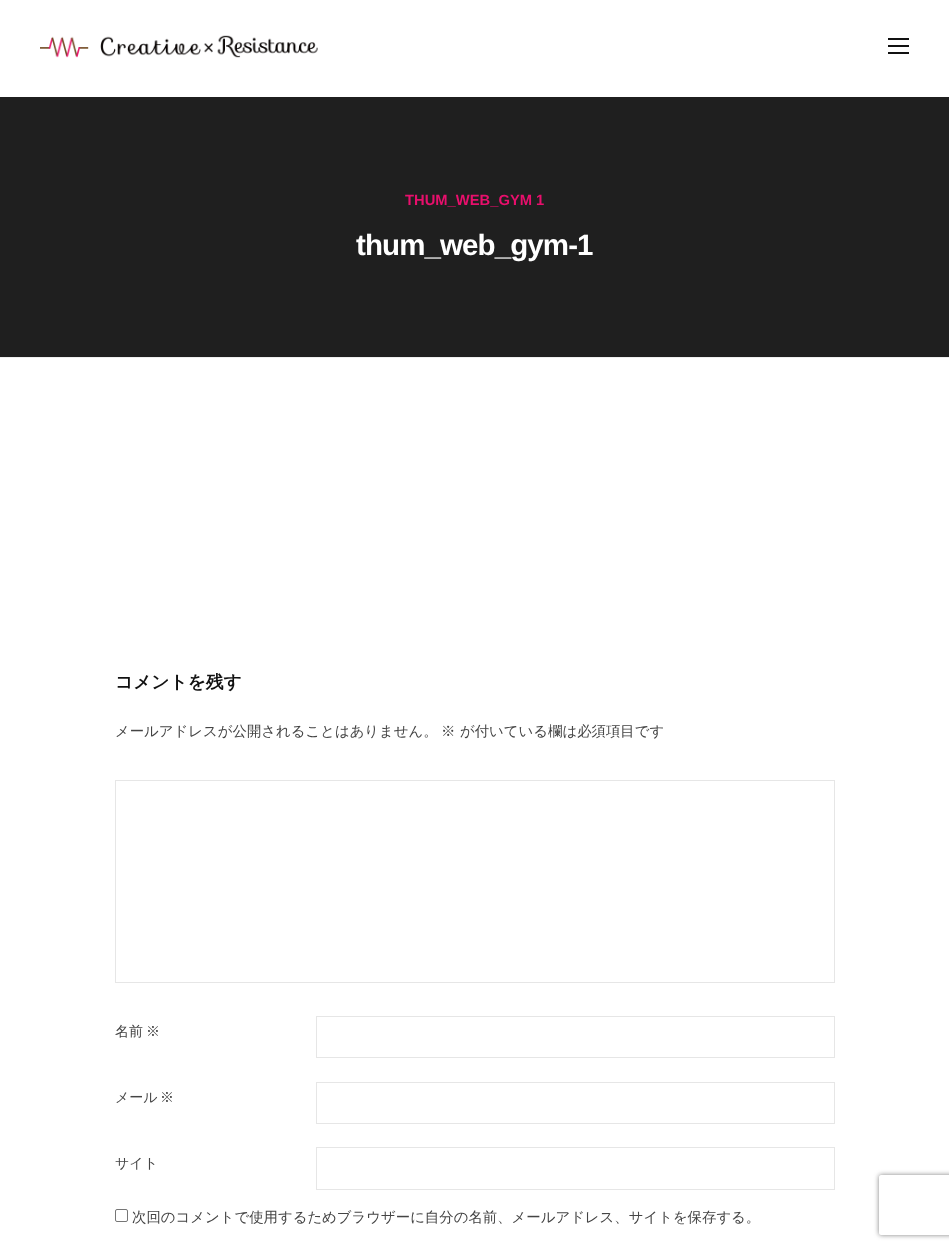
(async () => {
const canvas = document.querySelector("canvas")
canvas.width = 949
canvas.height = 1249
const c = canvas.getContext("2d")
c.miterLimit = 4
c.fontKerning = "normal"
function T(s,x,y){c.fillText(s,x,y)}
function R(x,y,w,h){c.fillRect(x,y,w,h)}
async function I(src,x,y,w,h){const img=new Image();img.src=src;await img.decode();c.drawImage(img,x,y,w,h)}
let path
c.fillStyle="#fff"
R(0,0,949,1249)
c.fillStyle="#eee"
R(0,357,949,1)
await I("1.png",40,35,278,23)
c.fillStyle="#111"
R(888,45,21,2)
R(888,38,21,2)
R(888,52,21,2)
c.fillStyle="#1f1f1f"
R(0,97,949,260)
c.font="bold 14.75px Liberation Sans"
c.fillStyle="#e80f6c"
T("THUM_WEB_GYM 1",405,205)
c.letterSpacing="-0.9px"
c.font="bold 29.5px Liberation Sans"
c.fillStyle="#fff"
T("thum_web_gym-1",356,255)
c.letterSpacing="0px"
c.font="bold 17.75px WenQuanYi Zen Hei"
c.fillStyle="#111"
T("コメントを残す",115,688)
c.font="500 14.4px WenQuanYi Zen Hei"
c.fillStyle="#444"
T("メールアドレスが公開されることはありません。",115,736)
T("※",441,736)
T("が付いている欄は必須項目です",460,736)
c.strokeStyle="#e6e6e6"
c.strokeRect(115.5,780.5,719,202)
c.font="500 14px WenQuanYi Zen Hei"
T("名前",115,1036)
T("※",146,1036)
c.strokeRect(316.5,1016.5,518,41)
T("メール",115,1102)
T("※",160,1102)
c.strokeRect(316.5,1082.5,518,41)
T("サイト",115,1168)
c.strokeRect(316.5,1147.5,518,42)
c.beginPath()
c.roundRect(115.5,1209.5,12,12,1.5)
c.strokeStyle="#767676"
c.stroke()
c.font="500 14.4px WenQuanYi Zen Hei"
T("次回のコメントで使用するためブラウザーに自分の名前、メールアドレス、サイトを保存する。",132,1222)
c.save()
path = new Path2D("M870 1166h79v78h-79zm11 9h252c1 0 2 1 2 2v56c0 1-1 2-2 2h-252c-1 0-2-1-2-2v-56c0-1 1-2 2-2z")
c.clip(path,"evenodd")
c.fillStyle="#808080"
c.filter="blur(2.5px)"
c.beginPath()
c.roundRect(879,1175,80,60,2)
c.fill()
c.filter="none"
c.restore()
})()
